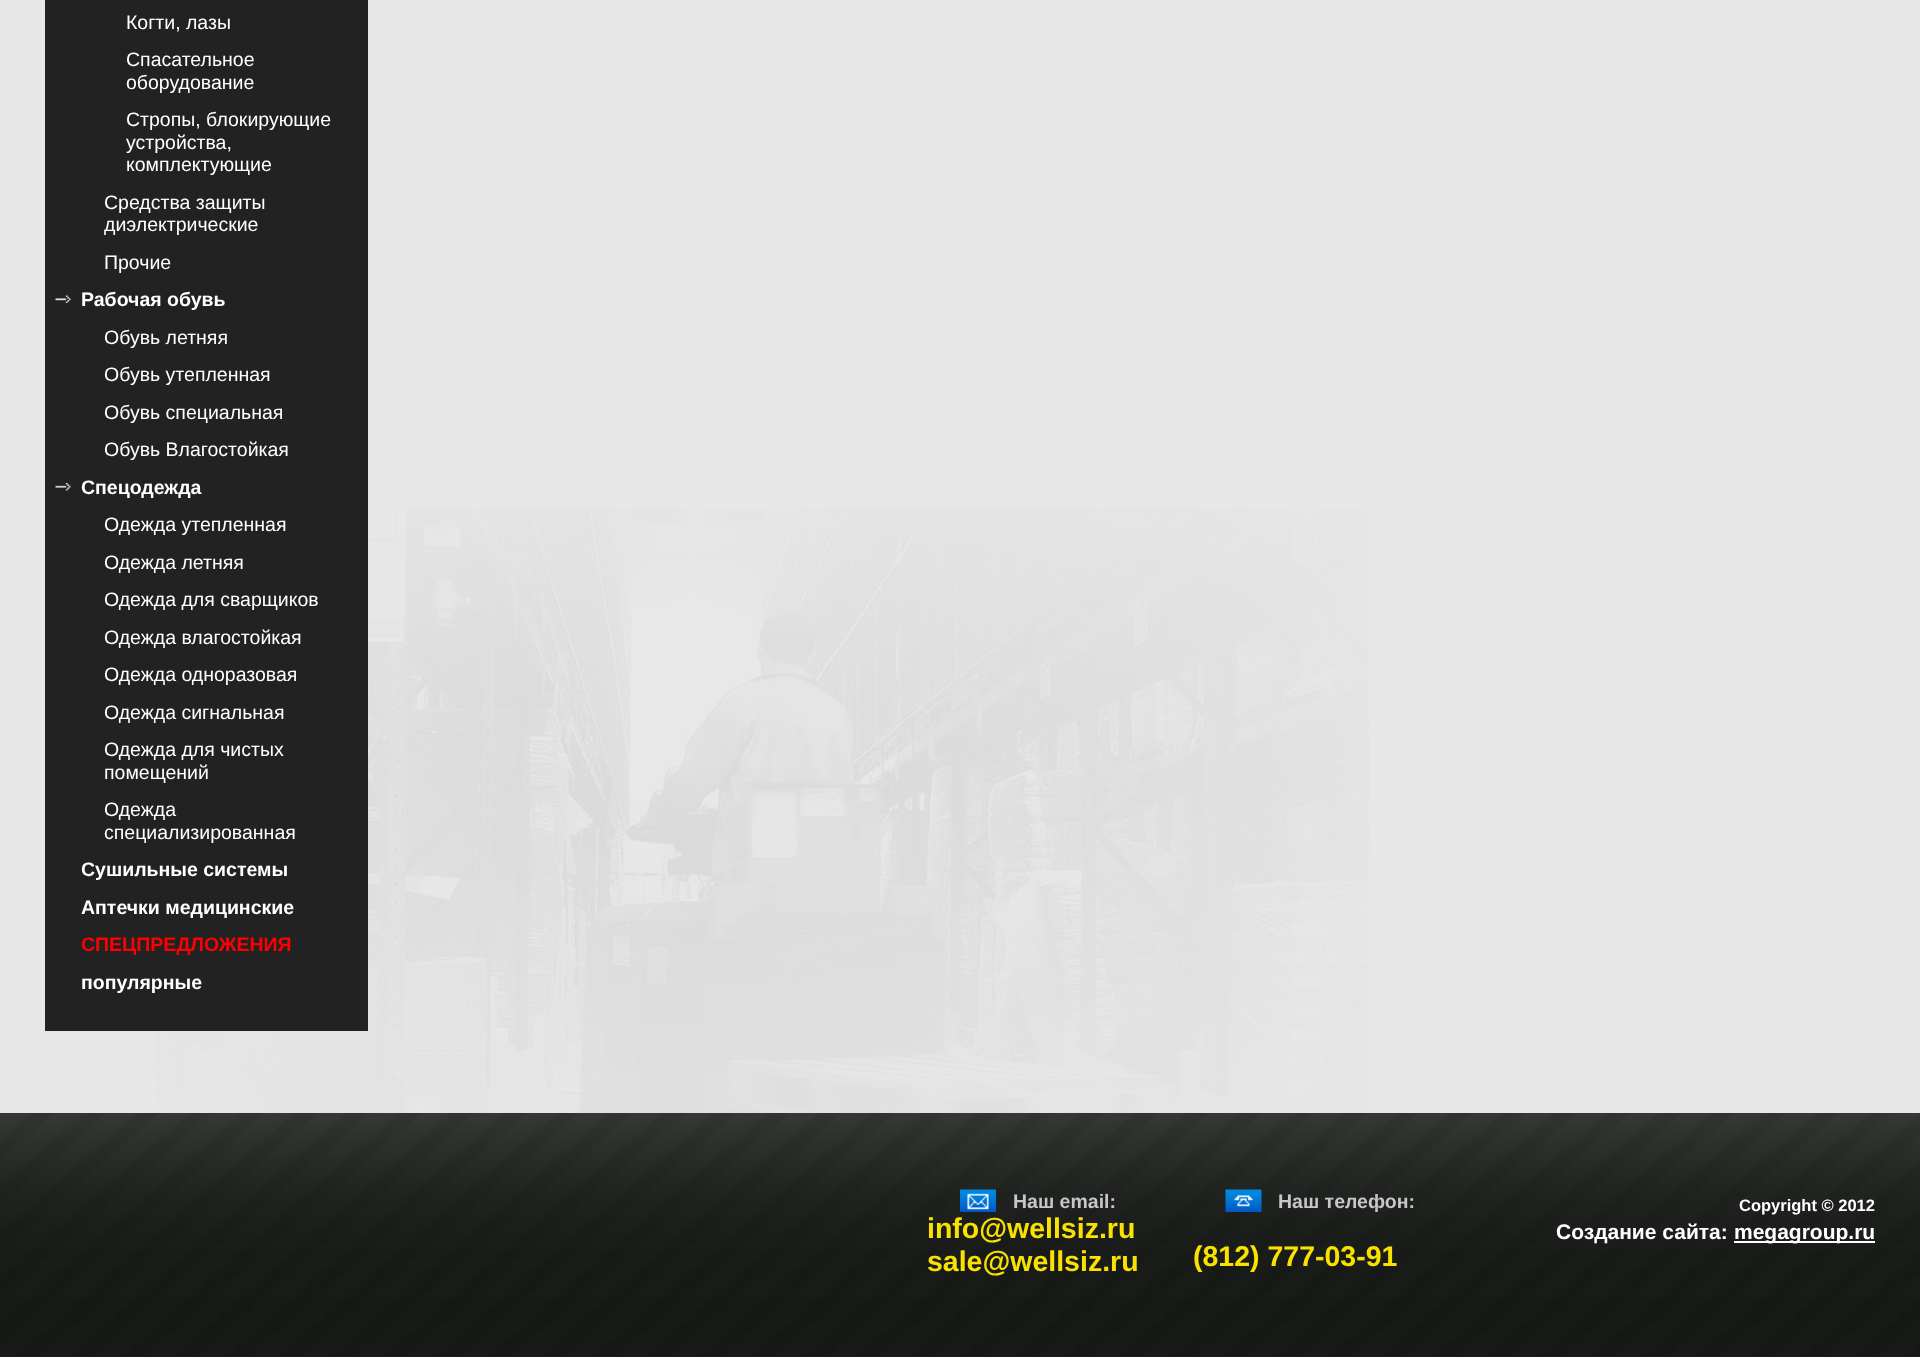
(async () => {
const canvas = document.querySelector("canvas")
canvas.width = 1920
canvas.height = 1357
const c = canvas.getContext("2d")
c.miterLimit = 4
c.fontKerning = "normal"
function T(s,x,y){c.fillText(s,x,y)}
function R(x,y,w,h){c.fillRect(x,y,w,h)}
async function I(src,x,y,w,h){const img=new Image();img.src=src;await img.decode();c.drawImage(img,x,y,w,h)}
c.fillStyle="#e7e7e7"
R(0,0,1920,1357)
await I("1.png",155,509,1214,604)
c.fillStyle="#212221"
R(45,0,323,1031)
c.font="19.5px Liberation Sans"
c.fillStyle="#fff"
T("Когти, лазы",126,29)
T("Спасательное",126,66)
T("оборудование",126,89)
T("Стропы, блокирующие",126,126)
T("устройства,",126,149)
T("комплектующие",126,171)
T("Cредства защиты",104,209)
T("диэлектрические",104,231)
T("Прочие",104,269)
await I("2.png",55,295,16,8)
c.font="bold 19.5px Liberation Sans"
T("Рабочая обувь",81,306)
c.font="19.5px Liberation Sans"
T("Обувь летняя",104,344)
T("Обувь утепленная",104,381)
T("Обувь специальная",104,419)
T("Обувь Влагостойкая",104,456)
await I("3.png",55,483,16,8)
c.font="bold 19.5px Liberation Sans"
T("Спецодежда",81,494)
c.font="19.5px Liberation Sans"
T("Одежда утепленная",104,531)
T("Одежда летняя",104,569)
T("Одежда для сварщиков",104,606)
T("Одежда влагостойкая",104,644)
T("Одежда одноразовая",104,681)
T("Одежда сигнальная",104,719)
T("Одежда для чистых",104,756)
T("помещений",104,779)
T("Одежда",104,816)
T("специализированная",104,839)
c.font="bold 19.5px Liberation Sans"
T("Сушильные системы",81,876)
T("Аптечки медицинские",81,914)
c.fillStyle="#f00"
T("СПЕЦПРЕДЛОЖЕНИЯ",81,951)
c.fillStyle="#fff"
T("популярные",81,989)
await I("4.png",0,1113,1920,244)
await I("5.png",960,1189,36,23)
c.fillStyle="#c7c7c7"
T("Наш email:",1013,1208)
c.font="bold 28.5px Liberation Sans"
c.fillStyle="#f9e100"
T("info@wellsiz.ru",927,1238)
T("sale@wellsiz.ru",927,1271)
await I("6.png",1225,1189,37,23)
c.font="bold 19.5px Liberation Sans"
c.fillStyle="#c7c7c7"
T("Наш телефон:",1278,1208)
c.font="bold 28.5px Liberation Sans"
c.fillStyle="#f9e100"
T("(812) 777-03-91",1193,1266)
c.font="bold 16.5px Liberation Sans"
c.fillStyle="#fff"
T("Copyright © 2012",1739,1211)
c.font="bold 21px Liberation Sans"
T("Создание сайта:",1556,1239)
R(1734,1241,141,2)
T("megagroup.ru",1734,1239)
})()
